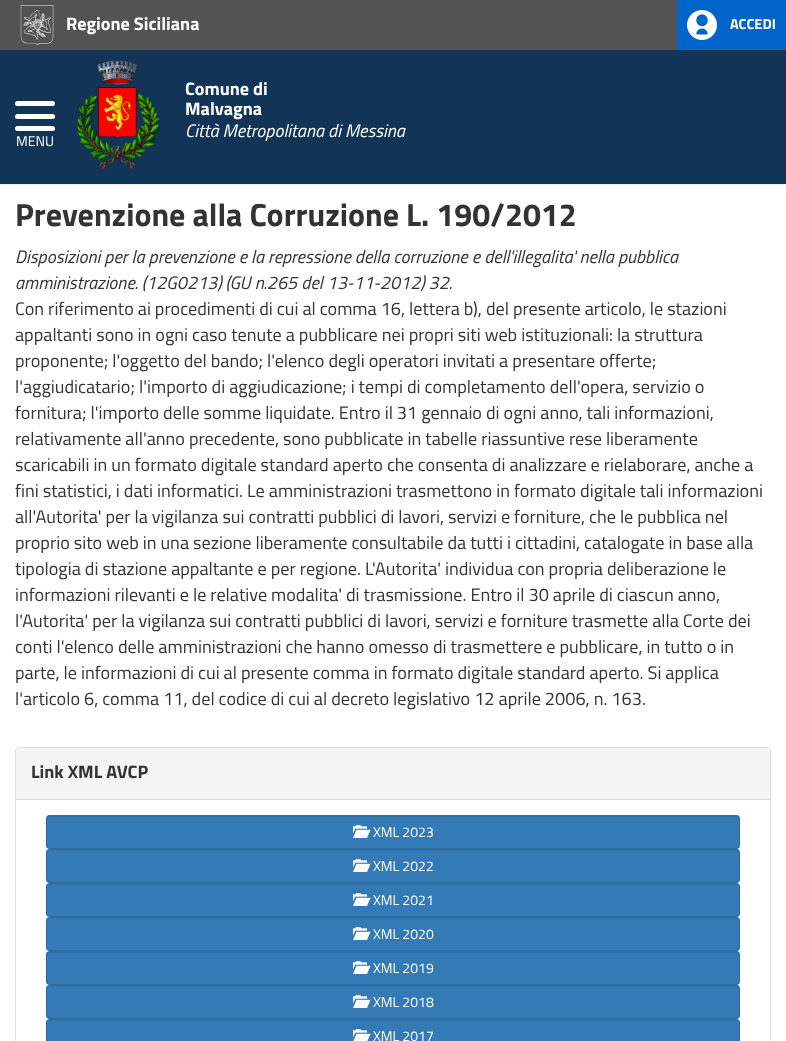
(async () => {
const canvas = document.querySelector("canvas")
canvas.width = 786
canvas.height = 1041
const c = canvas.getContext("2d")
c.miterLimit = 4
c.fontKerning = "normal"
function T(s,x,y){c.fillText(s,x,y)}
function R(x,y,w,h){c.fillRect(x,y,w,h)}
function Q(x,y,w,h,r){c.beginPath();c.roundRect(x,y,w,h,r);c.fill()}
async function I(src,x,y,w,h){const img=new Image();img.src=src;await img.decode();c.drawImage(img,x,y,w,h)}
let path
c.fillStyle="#fff"
R(0,0,786,1041)
c.fillStyle="#123456"
R(0,50,786,134)
c.fillStyle="#ececec"
R(0,184,786,1)
c.fillStyle="#fff"
Q(15,101,40,5,2.5)
Q(15,114,40,5,2.5)
Q(15,126,40,5,2.5)
c.font="14px Titillium Web"
T("MENU",16,146)
c.fillStyle="#535353"
R(0,0,677,50)
await I("1.png",20,5,34,40)
c.font="bold 18.2px Titillium Web"
c.fillStyle="#fff"
T("Regione Siciliana",66,30)
c.fillStyle="#0065cb"
R(677,0,109,50)
await I("2.png",687,10,30,30)
c.font="bold 14.5px Titillium Web"
c.fillStyle="#fff"
T("ACCEDI",730,29)
await I("3.png",77,60,84,110)
c.font="bold 18.2px Titillium Web"
T("Comune di",185,95)
T("Malvagna",185,115)
c.font="italic 18.2px Titillium Web"
T("Città Metropolitana di Messina",185,137)
c.font="bold 32px Titillium Web"
c.fillStyle="#333"
T("Prevenzione alla Corruzione L. 190/2012",15,226)
c.font="italic 18.2px Titillium Web"
T("Disposizioni per la prevenzione e la repressione della corruzione e dell'illegalita' nella pubblica",15,263)
T("amministrazione. (12G0213) (GU n.265 del 13-11-2012) 32.",15,289)
c.font="18.2px Titillium Web"
T("Con riferimento ai procedimenti di cui al comma 16, lettera b), del presente articolo, le stazioni",15,315)
T("appaltanti sono in ogni caso tenute a pubblicare nei propri siti web istituzionali: la struttura",15,341)
T("proponente; l'oggetto del bando; l'elenco degli operatori invitati a presentare offerte;",15,367)
T("l'aggiudicatario; l'importo di aggiudicazione; i tempi di completamento dell'opera, servizio o",15,393)
T("fornitura; l'importo delle somme liquidate. Entro il 31 gennaio di ogni anno, tali informazioni,",15,419)
T("relativamente all'anno precedente, sono pubblicate in tabelle riassuntive rese liberamente",15,445)
T("scaricabili in un formato digitale standard aperto che consenta di analizzare e rielaborare, anche a",15,471)
T("fini statistici, i dati informatici. Le amministrazioni trasmettono in formato digitale tali informazioni",15,497)
T("all'Autorita' per la vigilanza sui contratti pubblici di lavori, servizi e forniture,",15,523)
T("che le pubblica nel",589,523)
T("proprio sito web in una sezione liberamente consultabile da tutti i cittadini, catalogate in base alla",15,549)
T("tipologia di stazione appaltante e per regione. L'Autorita' individua con propria deliberazione le",15,575)
T("informazioni rilevanti e le relative modalita' di trasmissione. Entro il 30 aprile di ciascun anno,",15,601)
T("l'Autorita' per la vigilanza sui contratti pubblici di lavori, servizi e forniture trasmette alla Corte dei",15,627)
T("conti l'elenco delle amministrazioni che hanno omesso di trasmettere e pubblicare, in tutto o in",15,653)
T("parte, le informazioni di cui al presente comma in formato digitale standard aperto. Si applica",15,679)
T("l'articolo 6, comma 11, del codice di cui al decreto legislativo 12 aprile 2006, n. 163.",15,705)
c.beginPath()
c.roundRect(15.5,747.5,755,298,3.5)
c.strokeStyle="#ddd"
c.stroke()
c.fillStyle="#f5f5f5"
c.beginPath()
c.roundRect(16,748,754,52,[3,3,0,0])
c.fill()
c.fillStyle="#ddd"
R(16,799,754,1)
c.font="bold 18.2px Titillium Web"
c.fillStyle="#333"
T("Link XML AVCP",31,778)
c.fillStyle="#337ab7"
Q(46,815,694,34,4)
c.fillStyle="#2f71a9"
path = new Path2D("M50 817h686c2 0 3 1 3 3v-1c0-2-1-3-3-3h-686c-2 0-3 1-3 3v1c0-2 1-3 3-3z")
c.fill(path)
c.beginPath()
c.roundRect(46.5,815.5,693,33,3.5)
c.strokeStyle="#2e6da4"
c.stroke()
await I("4.png",353,825,18,13)
c.font="14px Titillium Web"
c.fillStyle="#fff"
T("XML 2023",373,837)
c.fillStyle="#337ab7"
Q(46,849,694,34,4)
c.fillStyle="#2f71a9"
path = new Path2D("M50 851h686c2 0 3 1 3 3v-1c0-2-1-3-3-3h-686c-2 0-3 1-3 3v1c0-2 1-3 3-3z")
c.fill(path)
c.beginPath()
c.roundRect(46.5,849.5,693,33,3.5)
c.stroke()
await I("4.png",353,859,18,13)
c.fillStyle="#fff"
T("XML 2022",373,871)
c.fillStyle="#337ab7"
Q(46,883,694,34,4)
c.fillStyle="#2f71a9"
path = new Path2D("M50 885h686c2 0 3 1 3 3v-1c0-2-1-3-3-3h-686c-2 0-3 1-3 3v1c0-2 1-3 3-3z")
c.fill(path)
c.beginPath()
c.roundRect(46.5,883.5,693,33,3.5)
c.stroke()
await I("4.png",353,893,18,13)
c.fillStyle="#fff"
T("XML 2021",373,905)
c.fillStyle="#337ab7"
Q(46,917,694,34,4)
c.fillStyle="#2f71a9"
path = new Path2D("M50 919h686c2 0 3 1 3 3v-1c0-2-1-3-3-3h-686c-2 0-3 1-3 3v1c0-2 1-3 3-3z")
c.fill(path)
c.beginPath()
c.roundRect(46.5,917.5,693,33,3.5)
c.stroke()
await I("4.png",353,927,18,13)
c.fillStyle="#fff"
T("XML 2020",373,939)
c.fillStyle="#337ab7"
Q(46,951,694,34,4)
c.fillStyle="#2f71a9"
path = new Path2D("M50 953h686c2 0 3 1 3 3v-1c0-2-1-3-3-3h-686c-2 0-3 1-3 3v1c0-2 1-3 3-3z")
c.fill(path)
c.beginPath()
c.roundRect(46.5,951.5,693,33,3.5)
c.stroke()
await I("4.png",353,961,18,13)
c.fillStyle="#fff"
T("XML 2019",373,973)
c.fillStyle="#337ab7"
Q(46,985,694,34,4)
c.fillStyle="#2f71a9"
path = new Path2D("M50 987h686c2 0 3 1 3 3v-1c0-2-1-3-3-3h-686c-2 0-3 1-3 3v1c0-2 1-3 3-3z")
c.fill(path)
c.beginPath()
c.roundRect(46.5,985.5,693,33,3.5)
c.stroke()
await I("4.png",353,995,18,13)
c.fillStyle="#fff"
T("XML 2018",373,1007)
c.fillStyle="#337ab7"
Q(46,1019,694,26,4)
c.fillStyle="#2f71a9"
path = new Path2D("M50 1021h686c2 0 3 1 3 3v-1c0-2-1-3-3-3h-686c-2 0-3 1-3 3v1c0-2 1-3 3-3z")
c.fill(path)
c.beginPath()
c.roundRect(46.5,1019.5,693,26,3.5)
c.stroke()
await I("5.png",353,1029,18,12)
c.fillStyle="#fff"
T("XML 2017",373,1041)
})()
